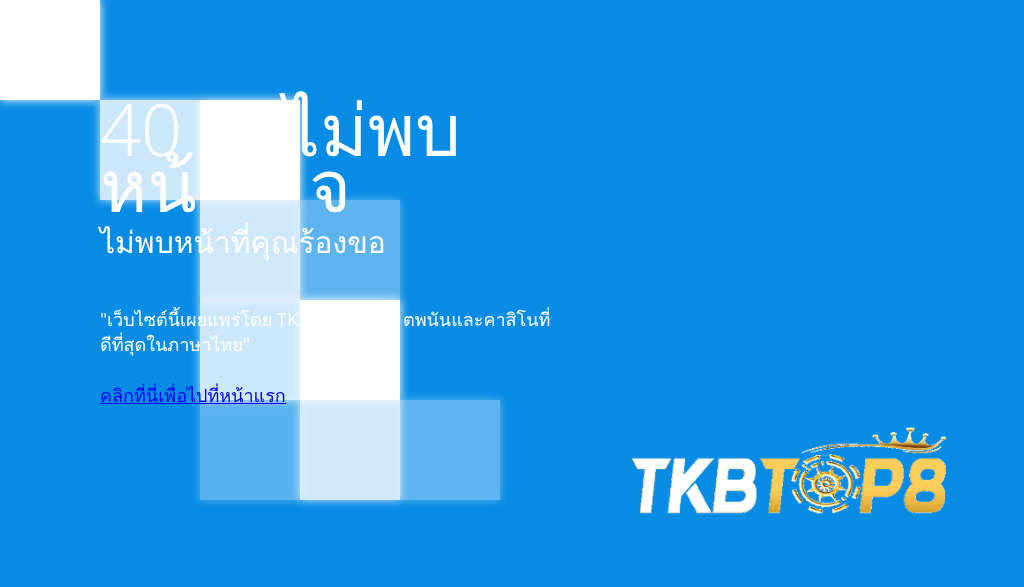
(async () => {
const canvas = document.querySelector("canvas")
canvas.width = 1024
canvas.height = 587
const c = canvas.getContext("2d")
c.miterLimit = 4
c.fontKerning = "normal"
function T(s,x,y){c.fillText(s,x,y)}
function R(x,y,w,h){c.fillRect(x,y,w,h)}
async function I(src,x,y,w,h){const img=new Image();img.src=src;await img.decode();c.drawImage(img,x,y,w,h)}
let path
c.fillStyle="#078ce5"
R(0,0,1024,587)
c.fillStyle="#fff"
c.filter="blur(5px)"
c.beginPath()
c.rect(0,0,100,100)
c.fill()
c.filter="none"
R(0,0,100,100)
c.save()
path = new Path2D("M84 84h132v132h-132zm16 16h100v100h-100z")
c.clip(path,"evenodd")
c.fillStyle="#ffffffcc"
c.filter="blur(5px)"
c.beginPath()
c.rect(100,100,100,100)
c.fill()
c.filter="none"
c.restore()
c.fillStyle="#ffffffcc"
R(100,100,100,100)
c.fillStyle="#fff"
c.filter="blur(5px)"
c.beginPath()
c.rect(200,100,100,100)
c.fill()
c.filter="none"
R(200,100,100,100)
c.font="300 72px Open Sans"
T("40",100,156)
c.font="72px Loma"
T("ไม่พบ",284,156)
c.save()
path = new Path2D("M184 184h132v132h-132zm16 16h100v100h-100z")
c.clip(path,"evenodd")
c.fillStyle="#ffffffcf"
c.filter="blur(5px)"
c.beginPath()
c.rect(200,200,100,100)
c.fill()
c.filter="none"
c.restore()
T("หน้",100,212)
c.fillStyle="#ffffffcf"
R(200,200,100,100)
c.save()
path = new Path2D("M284 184h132v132h-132zm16 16h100v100h-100z")
c.clip(path,"evenodd")
c.fillStyle="#ffffff59"
c.filter="blur(5px)"
c.beginPath()
c.rect(300,200,100,100)
c.fill()
c.filter="none"
c.restore()
c.fillStyle="#ffffff59"
R(300,200,100,100)
c.fillStyle="#fff"
T("จ",309,212)
c.font="30px Loma"
T("ไม่พบหน้าที่คุณร้องขอ",100,253)
c.font="18px Open Sans"
T("\"",100,326)
c.save()
path = new Path2D("M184 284h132v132h-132zm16 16h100v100h-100z")
c.clip(path,"evenodd")
c.fillStyle="#ffffffcc"
c.filter="blur(5px)"
c.beginPath()
c.rect(200,300,100,100)
c.fill()
c.filter="none"
c.restore()
c.fillStyle="#ffffffcc"
R(200,300,100,100)
c.font="18px Loma"
c.fillStyle="#fff"
T("เว็บไซต์นี้เผยแพร่โดย",107,326)
c.filter="blur(5px)"
c.beginPath()
c.rect(300,300,100,100)
c.fill()
c.filter="none"
c.font="18px Open Sans"
T("TK",277,326)
c.font="18px Loma"
T("ตพนันและคาสิโนที่",403,326)
T("ดีที่สุดในภาษาไทย",100,351)
c.font="18px Open Sans"
T("\"",243,351)
R(300,300,100,100)
c.save()
path = new Path2D("M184 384h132v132h-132zm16 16h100v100h-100z")
c.clip(path,"evenodd")
c.fillStyle="#ffffff54"
c.filter="blur(5px)"
c.beginPath()
c.rect(200,400,100,100)
c.fill()
c.filter="none"
c.restore()
c.fillStyle="#ffffff54"
R(200,400,100,100)
c.save()
path = new Path2D("M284 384h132v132h-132zm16 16h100v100h-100z")
c.clip(path,"evenodd")
c.fillStyle="#ffffffcf"
c.filter="blur(5px)"
c.beginPath()
c.rect(300,400,100,100)
c.fill()
c.filter="none"
c.restore()
c.font="18px Loma"
c.fillStyle="#00e"
T("คลิกที่นี่เพื่อไปที่หน้าแรก",100,402)
R(100,403,186,1)
await I("1.png",631,427,316,88)
c.fillStyle="#ffffffcf"
R(300,400,100,100)
c.save()
path = new Path2D("M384 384h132v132h-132zm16 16h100v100h-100z")
c.clip(path,"evenodd")
c.fillStyle="#ffffff59"
c.filter="blur(5px)"
c.beginPath()
c.rect(400,400,100,100)
c.fill()
c.filter="none"
c.restore()
c.fillStyle="#ffffff59"
R(400,400,100,100)
})()
